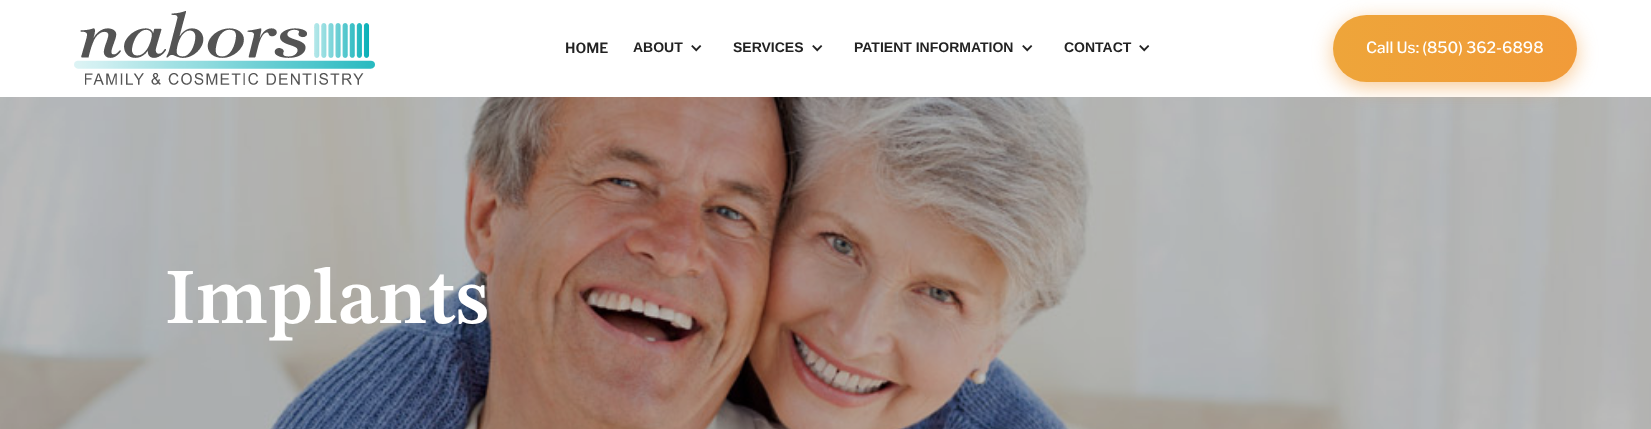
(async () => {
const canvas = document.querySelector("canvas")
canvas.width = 1651
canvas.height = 429
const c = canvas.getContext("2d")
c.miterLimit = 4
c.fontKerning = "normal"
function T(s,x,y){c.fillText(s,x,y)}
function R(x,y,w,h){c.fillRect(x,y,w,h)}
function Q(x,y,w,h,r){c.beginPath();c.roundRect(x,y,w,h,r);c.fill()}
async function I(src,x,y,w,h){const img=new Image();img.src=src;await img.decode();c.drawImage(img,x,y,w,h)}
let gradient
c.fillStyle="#fff"
R(0,0,1651,429)
await I("1.png",74,11,301,74)
c.font="600 14px Libre Franklin"
c.fillStyle="#222"
T("HOME",565,53)
c.font="bold 14px Liberation Sans"
T("ABOUT",633,52)
await I("2.png",691,45,11,7)
T("SERVICES",733,52)
await I("2.png",812,45,11,7)
T("PATIENT INFORMATION",854,52)
await I("2.png",1022,45,11,7)
T("CONTACT",1064,52)
await I("2.png",1139,45,11,7)
await I("3.png",0,97,1651,332)
c.fillStyle="#f19b3985"
c.filter="blur(10px)"
c.beginPath()
c.roundRect(1333,20,244,67,33.5)
c.fill()
c.filter="none"
gradient = c.createLinearGradient(1333,49,1577,48)
gradient.addColorStop(0,"#eea53a")
gradient.addColorStop(1,"#f19b39")
c.fillStyle = gradient
Q(1333,15,244,67,33.5)
c.font="500 15.5px Libre Franklin"
c.fillStyle="#fff"
T("Call Us: (850) 362-6898",1366,53)
c.font="600 79.25px STIX Two Text"
T("Implants",165,323)
})()
